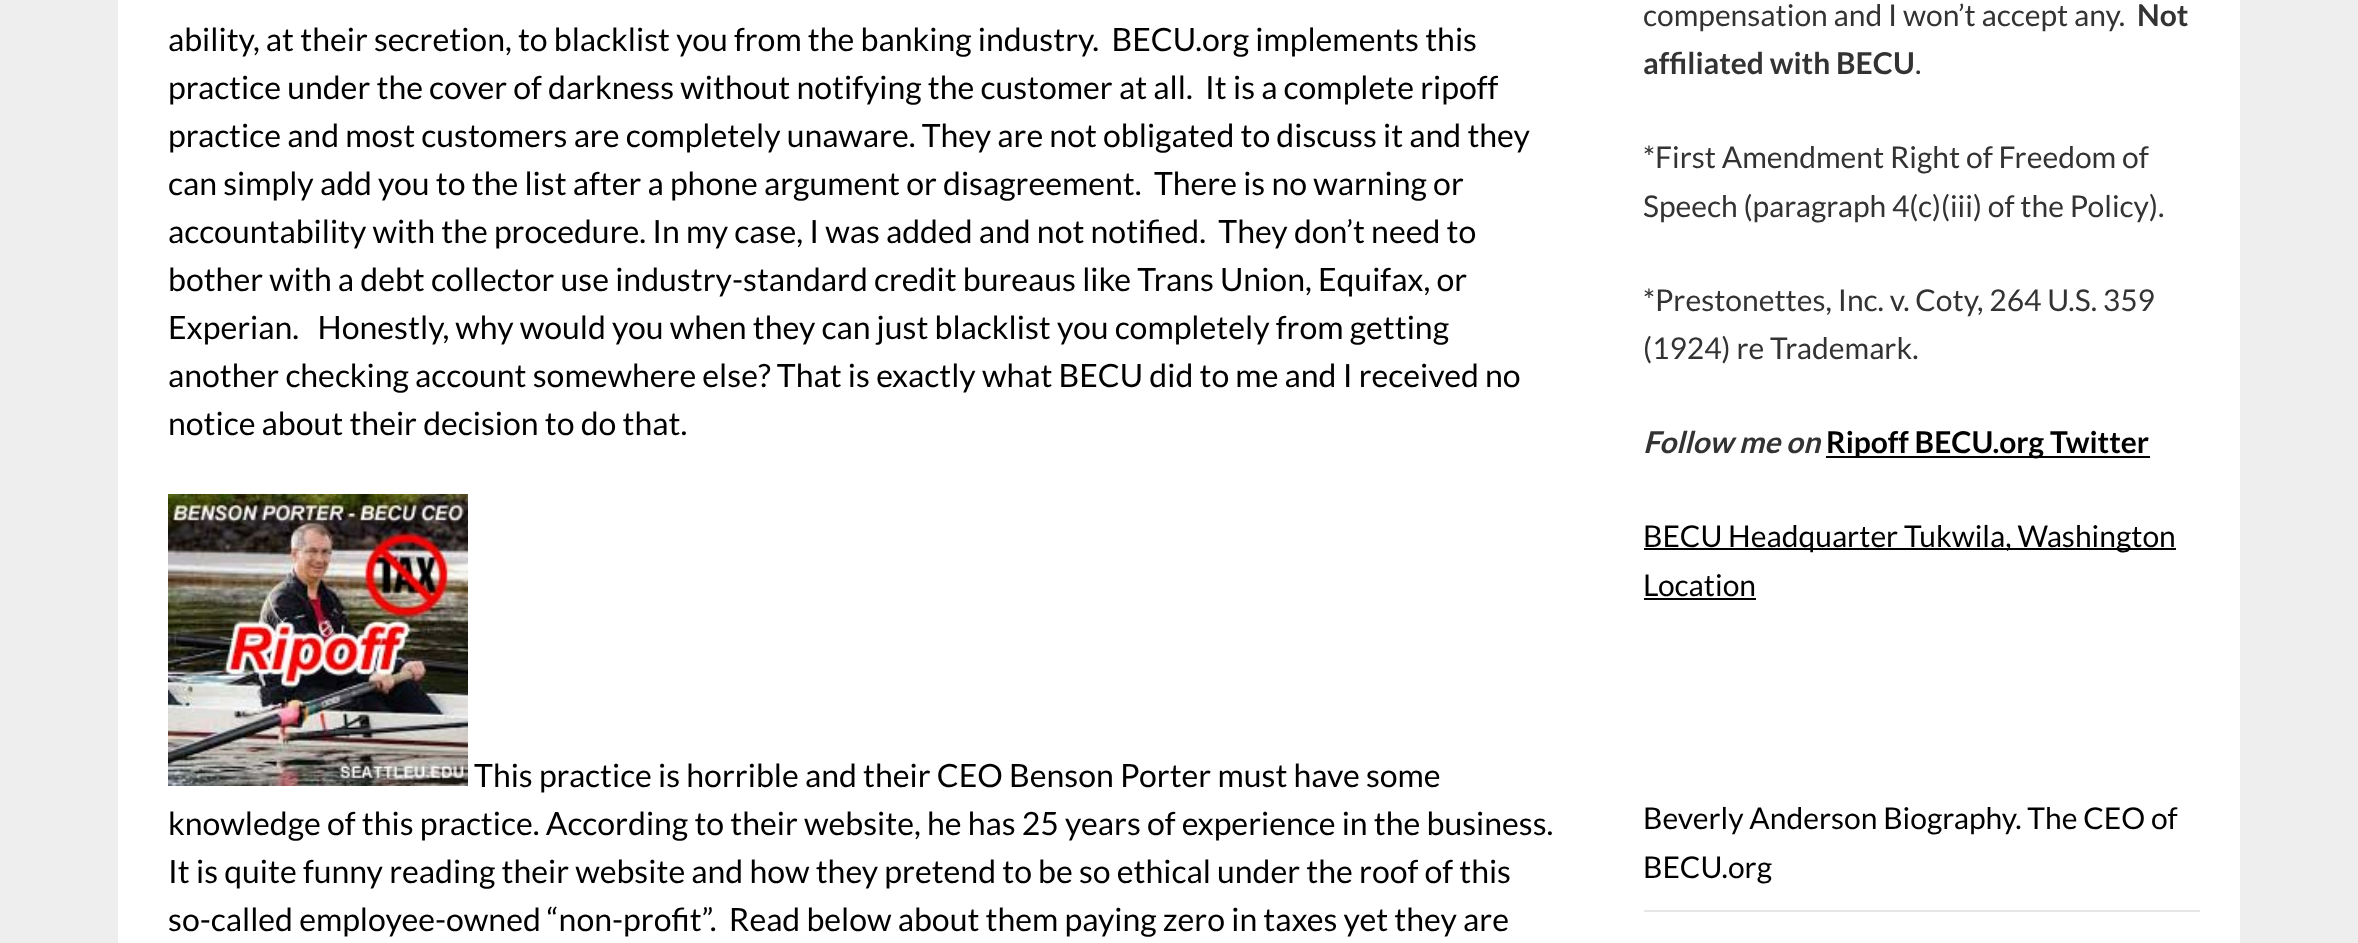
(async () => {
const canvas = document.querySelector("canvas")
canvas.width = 2358
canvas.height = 943
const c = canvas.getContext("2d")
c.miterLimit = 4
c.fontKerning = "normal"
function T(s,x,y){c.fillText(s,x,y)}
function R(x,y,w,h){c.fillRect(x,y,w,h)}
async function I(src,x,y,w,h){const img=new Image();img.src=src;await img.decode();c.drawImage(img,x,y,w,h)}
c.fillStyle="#eee"
R(0,0,2358,943)
c.fillStyle="#fff"
R(118,0,2122,943)
c.font="32px Lato"
c.fillStyle="#000"
T("ability, at their secretion, to blacklist you from the banking industry.  BECU.org implements this",168,51)
T("practice under the cover of darkness without notifying the customer at all.  It is a complete ripoff",168,99)
T("practice and most customers are completely unaware. They are not obligated to discuss it and they",168,147)
T("can simply add you to the list after a phone argument or disagreement.  There is no warning or",168,195)
T("accountability with the procedure. In my case, I was added and not notified.  They don’t need to",168,243)
T("bother with a debt collector use industry-standard credit bureaus like Trans Union, Equifax, or",168,291)
T("Experian.   Honestly, why would you when they can just blacklist you completely from getting",168,339)
T("another checking account somewhere else? That is exactly what BECU did to me and I received no",168,387)
T("notice about their decision to do that.",168,435)
await I("1.png",168,494,300,292)
T("This practice is horrible and their CEO Benson Porter must have some",474,787)
T("knowledge of this practice. According to their website, he has 25 years of experience in the business.",168,835)
T("It is quite funny reading their website and how they pretend to be so ethical under the roof of this",168,883)
T("so-called employee-owned “non-profit”.  Read below about them paying zero in taxes yet they are",168,931)
c.font="30px Lato"
c.fillStyle="#333"
T("compensation and I won’t accept any.",1643,26)
c.font="bold 30px Lato"
T("Not",2137,26)
T("affiliated with BECU",1643,74)
c.font="30px Lato"
T(".",1915,74)
T("*First Amendment Right of Freedom of",1643,168)
T("Speech (paragraph 4(c)(iii) of the Policy).",1643,217)
T("*Prestonettes, Inc. v. Coty, 264 U.S. 359",1643,311)
T("(1924) re Trademark.",1643,359)
c.font="italic bold 30px Lato"
T("Follow me on",1643,453)
c.fillStyle="#000"
R(1826,456,324,2)
c.font="bold 30px Lato"
T("Ripoff BECU.org Twitter",1826,453)
R(1644,548,532,2)
c.font="30px Lato"
T("BECU Headquarter Tukwila, Washington",1643,547)
T("Location",1643,596)
R(1644,598,112,2)
c.fillStyle="#e6e6e6"
R(1644,910,556,2)
c.fillStyle="#000"
T("Beverly Anderson Biography. The CEO of",1643,829)
T("BECU.org",1643,878)
})()
